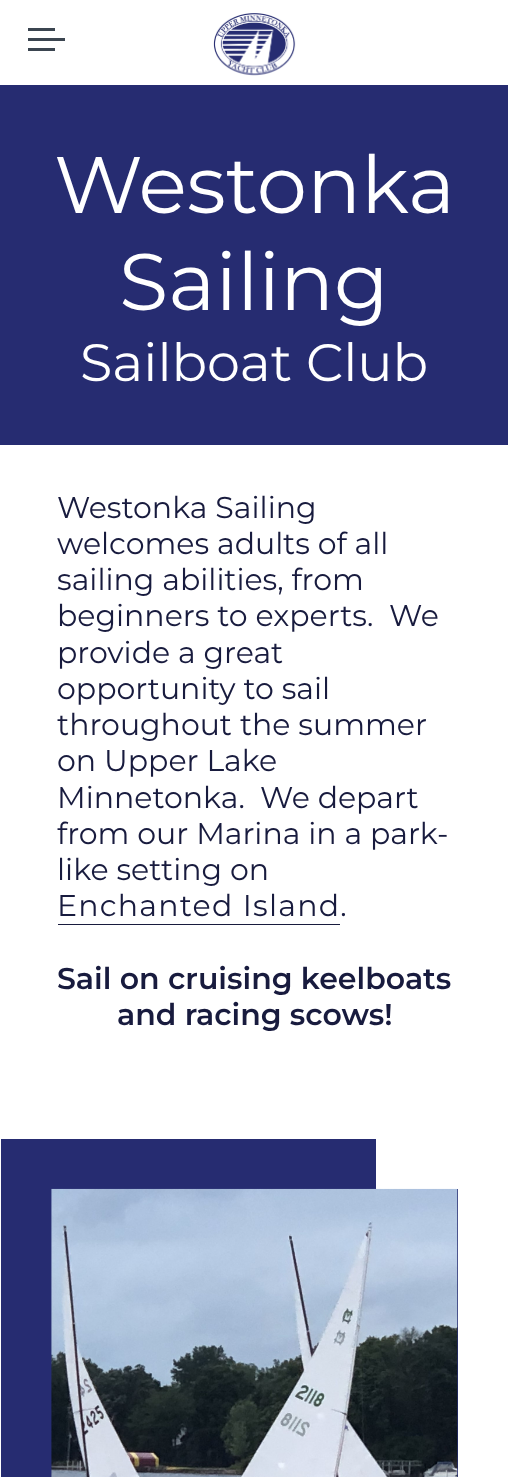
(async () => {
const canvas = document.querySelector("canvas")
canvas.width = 508
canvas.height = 1477
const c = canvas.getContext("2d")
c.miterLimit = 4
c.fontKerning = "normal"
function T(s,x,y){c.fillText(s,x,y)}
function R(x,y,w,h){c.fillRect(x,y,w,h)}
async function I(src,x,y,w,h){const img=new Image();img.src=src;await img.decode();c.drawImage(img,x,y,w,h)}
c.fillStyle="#fff"
R(0,0,508,1477)
c.fillStyle="#3b4550"
R(28,28,27,3)
R(28,38,37,3)
R(28,48,27,3)
await I("1.png",213,13,83,63)
c.fillStyle="#262c71"
R(0,85,508,360)
c.font="80px Montserrat"
c.fillStyle="#fff"
T("Westonka",54,213)
T("Sailing",119,310)
c.font="52.5px Montserrat"
T("Sailboat Club",80,381)
c.font="30px Montserrat"
c.fillStyle="#181b3e"
T("Westonka Sailing",57,518)
T("welcomes adults of all",57,554)
T("sailing abilities, from",57,590)
T("beginners to experts.",57,626)
T("We",389,626)
T("provide a great",57,663)
T("opportunity to sail",57,699)
T("throughout the summer",57,735)
T("on Upper Lake",57,771)
T("Minnetonka.",57,808)
T("We depart",260,808)
T("from our Marina in a park-",57,844)
T("like setting on",57,880)
c.letterSpacing="1.25px"
T("Enchanted Island.",57,916)
R(58,924,282,1)
c.letterSpacing="0px"
c.font="600 30px Montserrat"
T("Sail on cruising keelboats",57,989)
T("and racing scows!",117,1025)
c.fillStyle="#262c71"
R(1,1139,375,338)
R(376,1189,82,288)
await I("2.png",51,1188,407,289)
})()
